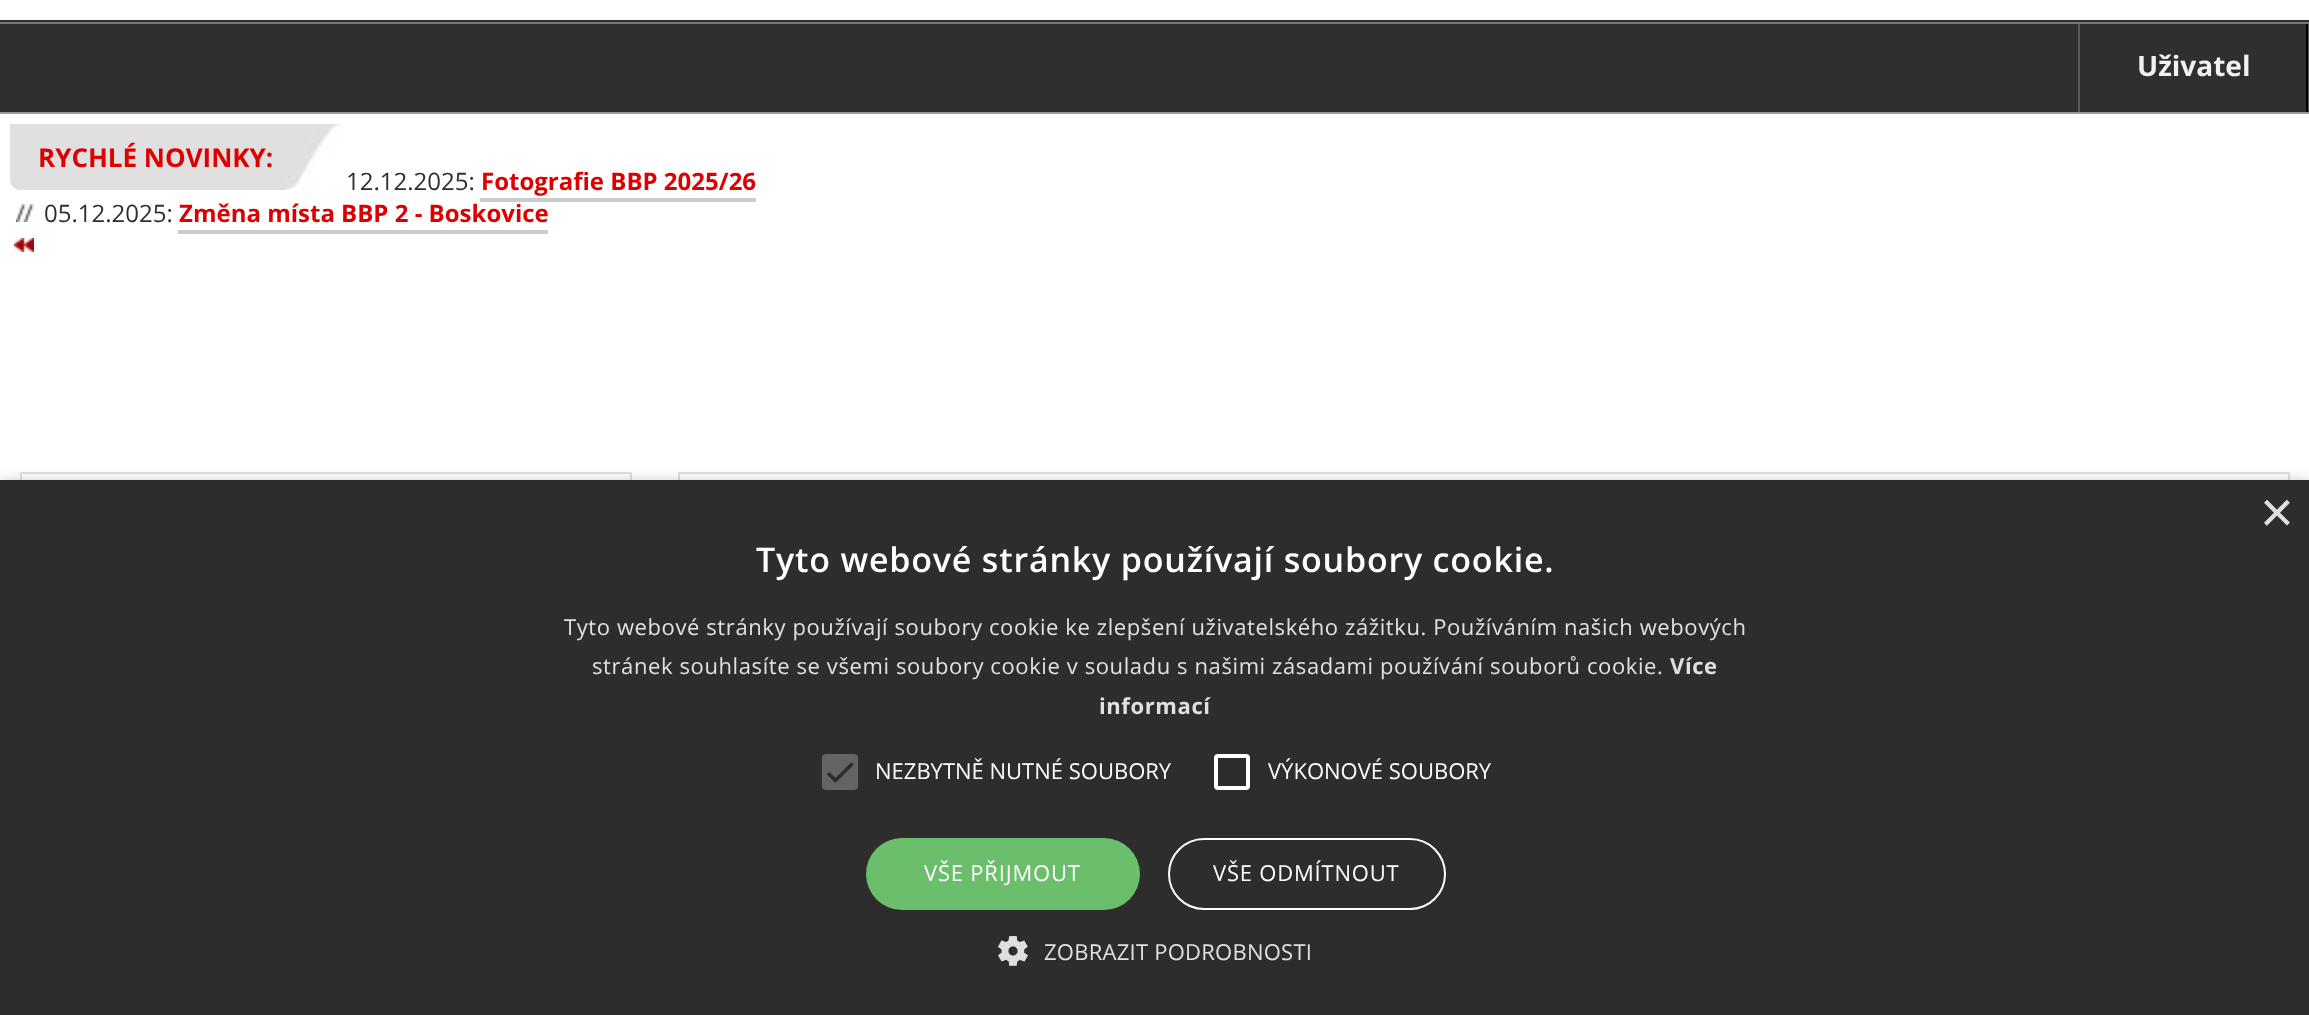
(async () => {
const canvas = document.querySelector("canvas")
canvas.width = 2309
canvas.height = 1015
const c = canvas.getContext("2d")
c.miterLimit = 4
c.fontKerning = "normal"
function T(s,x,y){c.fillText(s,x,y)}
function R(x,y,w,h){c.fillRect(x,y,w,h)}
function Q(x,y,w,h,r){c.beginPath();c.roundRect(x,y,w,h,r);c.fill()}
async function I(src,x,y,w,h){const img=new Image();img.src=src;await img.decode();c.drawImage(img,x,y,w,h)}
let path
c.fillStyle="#fff"
R(0,0,2309,1015)
c.fillStyle="#2f2f2f"
R(0,20,2309,2)
R(0,24,2309,88)
c.fillStyle="#787878"
R(0,22,2309,2)
c.fillStyle="#999"
R(0,112,2309,2)
c.fillStyle="#5b5b5b"
R(2308,24,1,86)
c.fillStyle="#000"
R(2306,24,2,88)
c.fillStyle="#5b5b5b"
R(2078,24,2,88)
c.font="bold 28px Open Sans"
c.fillStyle="#f1f1f1"
T("Uživatel",2137,76)
c.fillStyle="#e0e0e0"
c.beginPath()
c.roundRect(10,124,330,66,[0,0,0,10])
c.fill()
await I("1.png",286,124,54,66)
c.font="bold 26px Open Sans"
c.fillStyle="#de0000"
T("RYCHLÉ NOVINKY:",38,167)
c.font="24px Open Sans"
c.fillStyle="#2f2f2f"
T("12.12.2025:",346,190)
c.font="bold 24px Open Sans"
c.fillStyle="#de0000"
T("Fotografie BBP 2025/26",481,190)
c.fillStyle="#cbcbcb"
R(480,198,276,4)
await I("2.png",16,204,18,18)
c.font="24px Open Sans"
c.fillStyle="#2f2f2f"
T("05.12.2025:",44,222)
c.font="bold 24px Open Sans"
c.fillStyle="#de0000"
T("Změna místa BBP 2 - Boskovice",179,222)
c.fillStyle="#cbcbcb"
R(178,230,370,4)
await I("3.png",14,238,20,14)
c.strokeStyle="#e1e1e1"
c.lineWidth=2
c.strokeRect(21,473,610,196)
c.strokeRect(679,473,1610,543)
c.fillStyle="#00000059"
c.filter="blur(8px)"
c.beginPath()
c.rect(2,484,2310,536)
c.fill()
c.filter="none"
c.fillStyle="#2d2d2d"
R(0,480,2309,535)
c.font="58px Liberation Sans"
c.fillStyle="#e0e0e0"
T("×",2260,532)
c.letterSpacing="0.8px"
c.font="600 34px Open Sans"
c.fillStyle="#fff"
T("Tyto webové stránky používají soubory cookie.",756,572)
c.letterSpacing="0.6px"
c.font="22px Open Sans"
c.fillStyle="#e0e0e0"
T("Tyto webové stránky používají soubory cookie ke zlepšení uživatelského zážitku. Používáním našich webových",564,635)
T("stránek souhlasíte se všemi soubory cookie v souladu s našimi zásadami používání souborů cookie.",592,674)
c.font="bold 22px Open Sans"
T("Více",1670,674)
T("informací",1099,714)
c.fillStyle="#646464"
Q(822,754,36,36,4)
path = new Path2D("M828 773l7.5 7.5l17-17")
c.strokeStyle="#2d2d2d"
c.lineWidth=3.6
c.stroke(path)
c.letterSpacing="0px"
c.font="22px Open Sans"
c.fillStyle="#fff"
T("NEZBYTNĚ NUTNÉ SOUBORY",875,779)
c.beginPath()
c.roundRect(1216,756,32,32,2)
c.strokeStyle="#fff"
c.lineWidth=4
c.stroke()
T("VÝKONOVÉ SOUBORY",1268,779)
c.fillStyle="#6bbe6b"
Q(866,838,274,72,36)
c.letterSpacing="0.8px"
c.fillStyle="#fff"
T("VŠE PŘIJMOUT",924,881)
c.beginPath()
c.roundRect(1169,839,276,70,35)
c.lineWidth=2
c.stroke()
T("VŠE ODMÍTNOUT",1213,881)
await I("4.png",998,936,30,30)
c.letterSpacing="0.25px"
c.fillStyle="#e0e0e0"
T("ZOBRAZIT PODROBNOSTI",1044,960)
})()
